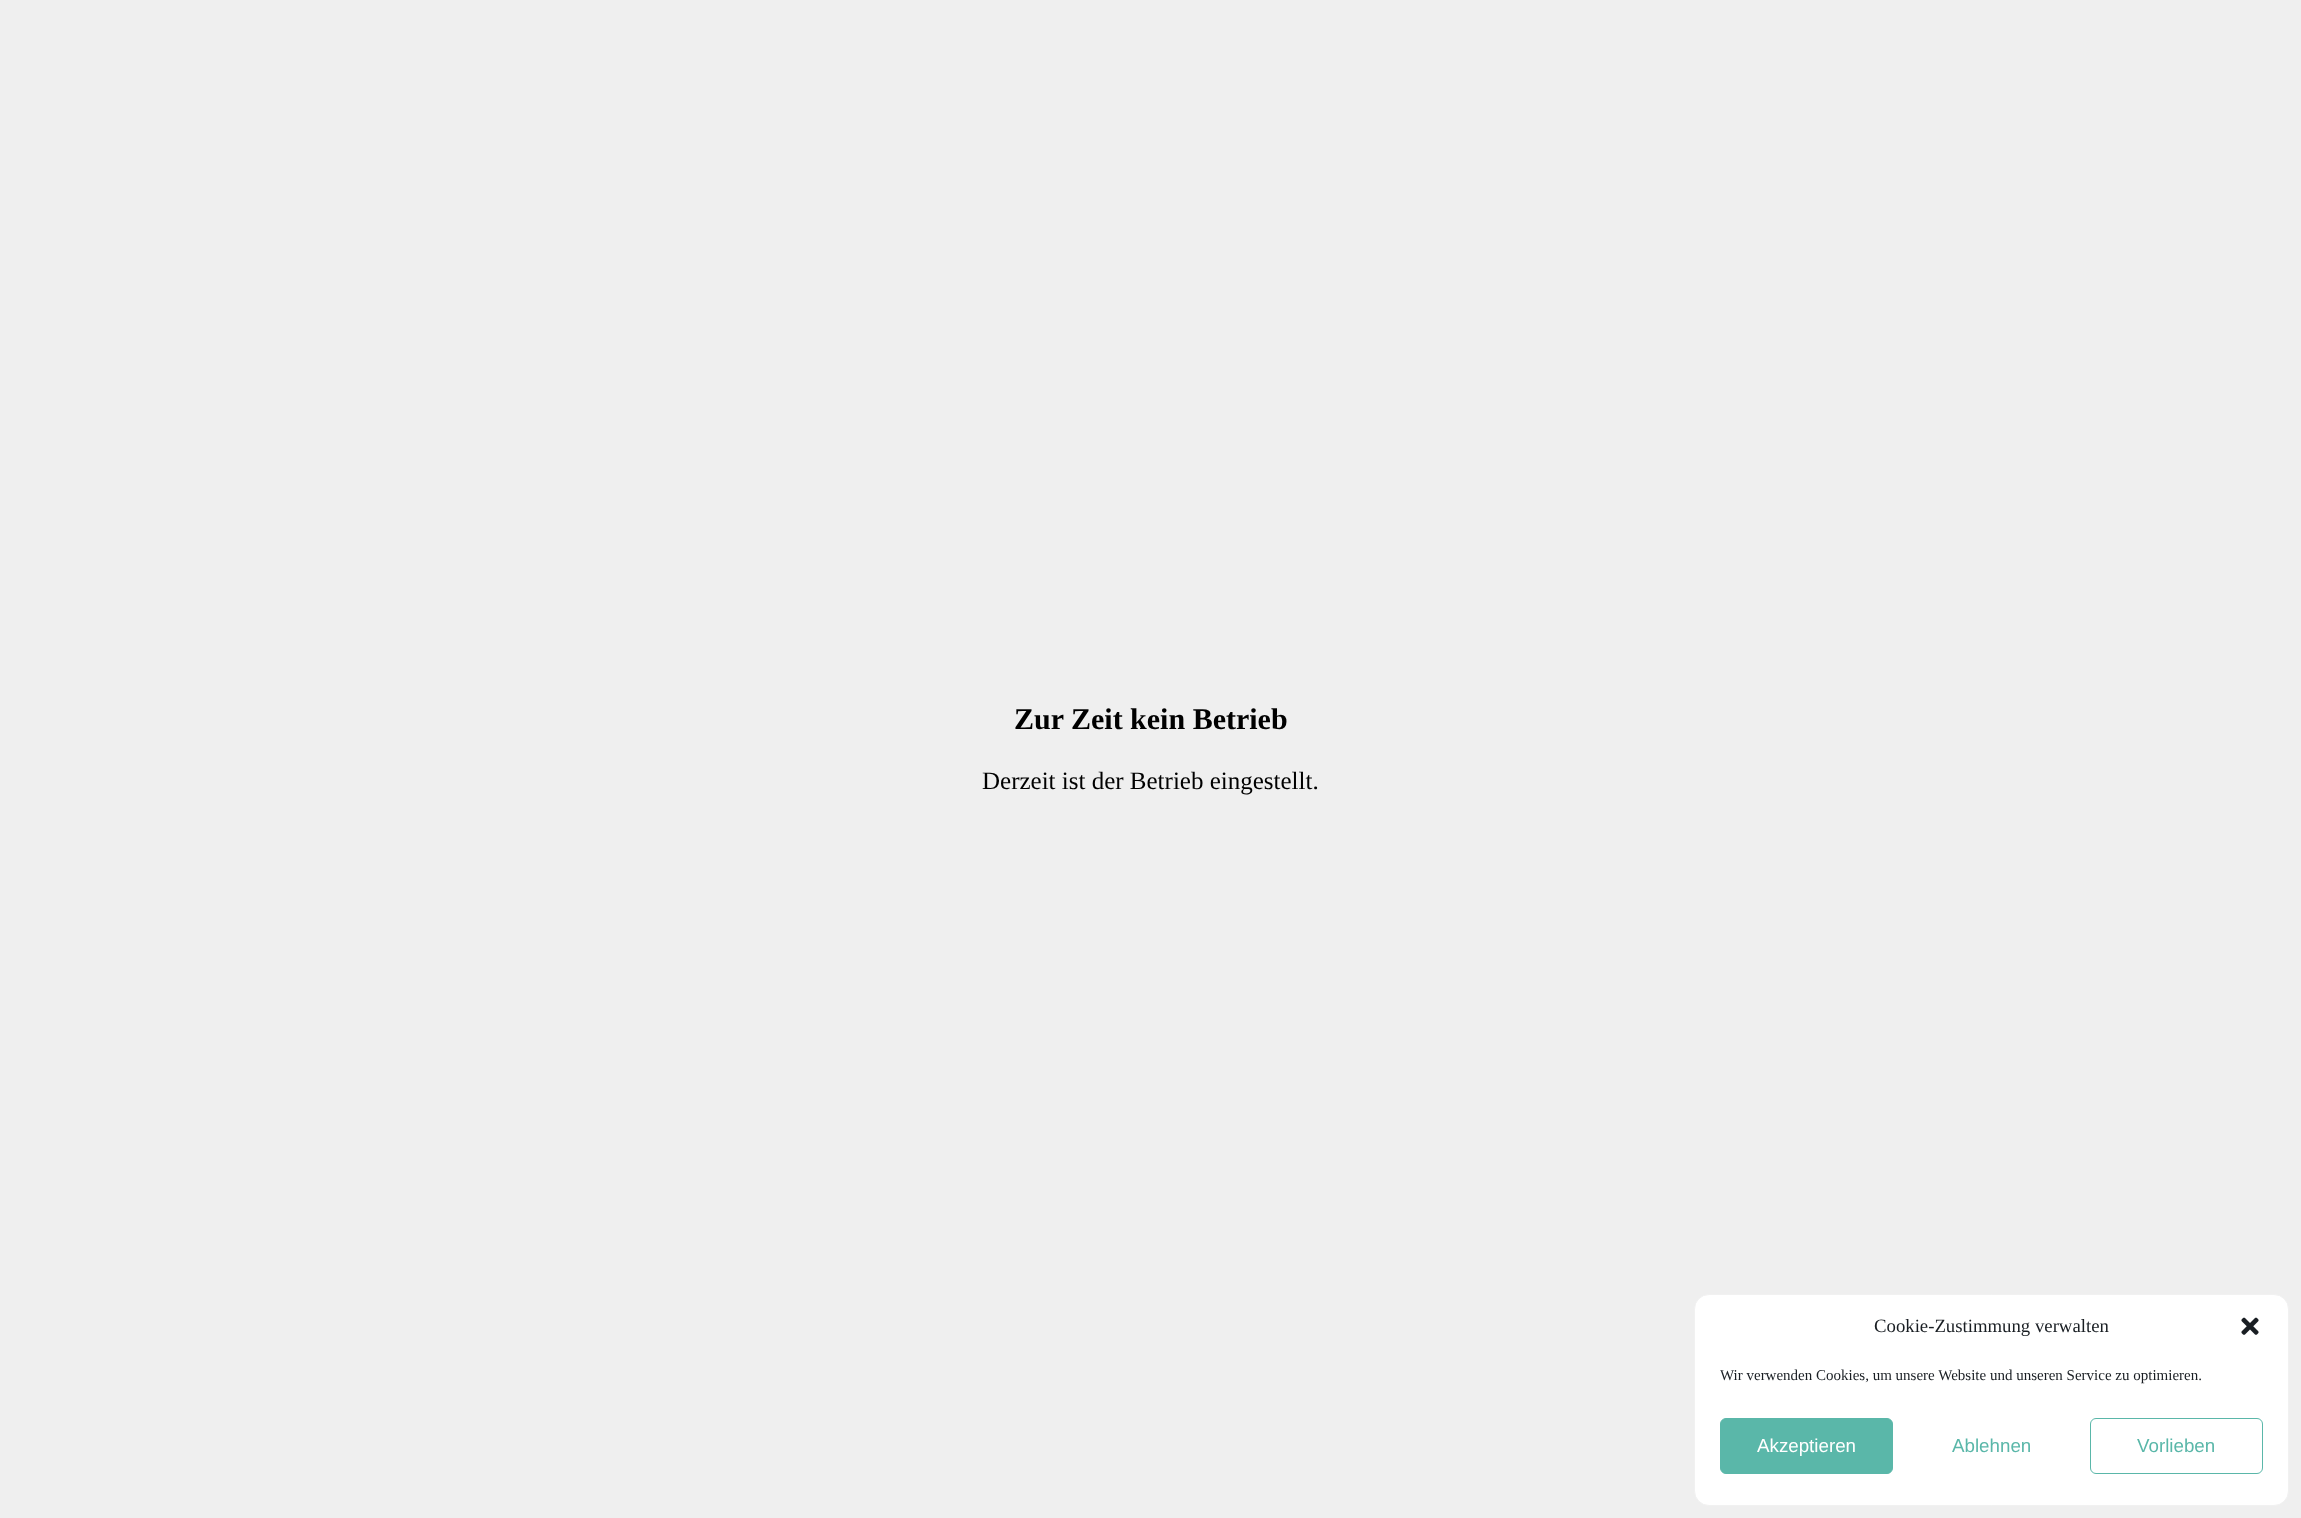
(async () => {
const canvas = document.querySelector("canvas")
canvas.width = 2301
canvas.height = 1518
const c = canvas.getContext("2d")
c.miterLimit = 4
c.fontKerning = "normal"
function T(s,x,y){c.fillText(s,x,y)}
function R(x,y,w,h){c.fillRect(x,y,w,h)}
async function I(src,x,y,w,h){const img=new Image();img.src=src;await img.decode();c.drawImage(img,x,y,w,h)}
c.fillStyle="#efefef"
R(0,0,2301,1518)
c.font="bold 30px Liberation Serif"
c.fillStyle="#000"
T("Zur Zeit kein Betrieb",1014,729)
c.font="25px Liberation Serif"
T("Derzeit ist der Betrieb eingestellt.",982,789)
c.fillStyle="#fff"
c.beginPath()
c.roundRect(1694.5,1294.5,594,211,14.5)
c.fill()
c.strokeStyle="#f1f1f1"
c.stroke()
c.font="18.75px Liberation Serif"
c.fillStyle="#191e23"
T("Cookie-Zustimmung verwalten",1874,1332)
await I("1.png",2241,1317,18,18)
c.font="15px Liberation Serif"
T("Wir verwenden Cookies, um unsere Website und unseren Service zu optimieren.",1720,1380)
c.fillStyle="#5ab7a9"
c.beginPath()
c.roundRect(1720.5,1418.5,172,55,5.5)
c.fill()
c.strokeStyle="#5ab7a9"
c.stroke()
c.font="18.75px Liberation Sans"
c.fillStyle="#fff"
T("Akzeptieren",1757,1452)
c.fillStyle="#5ab7a9"
T("Ablehnen",1952,1452)
c.beginPath()
c.roundRect(2090.5,1418.5,172,55,5.5)
c.stroke()
T("Vorlieben",2137,1452)
})()
